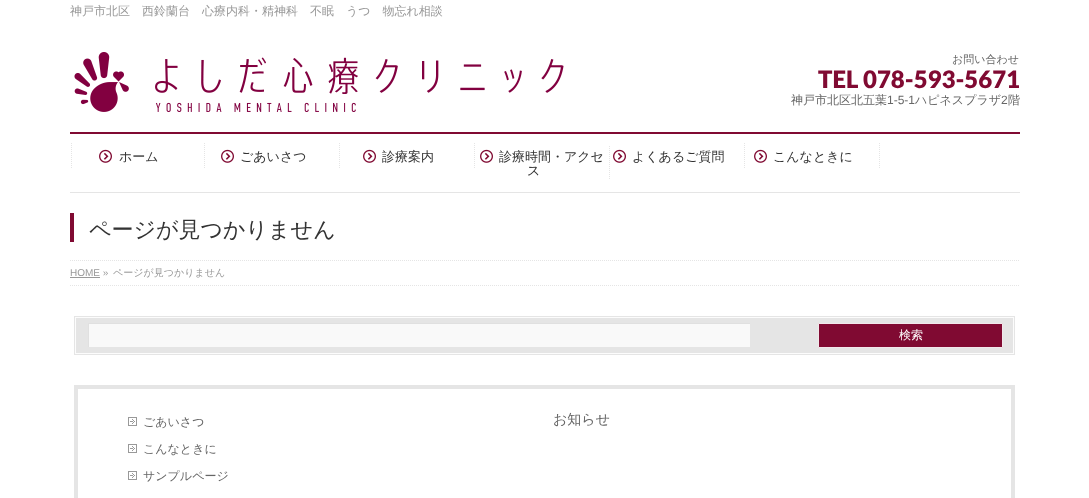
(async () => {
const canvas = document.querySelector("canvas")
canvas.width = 1089
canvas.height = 498
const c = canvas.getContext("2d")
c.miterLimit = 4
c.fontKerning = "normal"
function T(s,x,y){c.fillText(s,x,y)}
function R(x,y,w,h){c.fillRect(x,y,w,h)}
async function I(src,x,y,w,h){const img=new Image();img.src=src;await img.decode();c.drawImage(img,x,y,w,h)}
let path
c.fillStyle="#fff"
R(0,0,1089,498)
c.font="500 12px WenQuanYi Zen Hei"
c.fillStyle="#999"
T("神戸市北区　西鈴蘭台　心療内科・精神科　不眠　うつ　物忘れ相談",70,15)
await I("1.png",74,52,490,60)
c.font="500 11px WenQuanYi Zen Hei"
c.fillStyle="#666"
T("お問い合わせ",952,63)
c.font="900 24px Lato"
c.fillStyle="#800a32"
T("TEL 078-593-5671",818,88)
c.font="500 12px WenQuanYi Zen Hei"
c.fillStyle="#666"
T("神戸市北区北五葉",791,104)
c.font="12px Liberation Sans"
T("1-5-1",887,104)
c.font="500 12px WenQuanYi Zen Hei"
T("ハピネスプラザ",915,104)
c.font="12px Liberation Sans"
T("2",1001,104)
c.font="500 12px WenQuanYi Zen Hei"
T("階",1008,104)
c.fillStyle="#800a32"
R(70,132,950,2)
c.fillStyle="#e5e5e5"
R(70,192,950,1)
path = new Path2D("M71.5 143v26")
c.strokeStyle="#e5e5e5"
c.setLineDash([1,1])
c.stroke(path)
await I("2.png",99,149,13,14)
c.font="500 13px WenQuanYi Zen Hei"
c.fillStyle="#333"
T("ホーム",119,161)
path = new Path2D("M204.5 143v26")
c.stroke(path)
await I("2.png",221,149,13,14)
T("ごあいさつ",240,161)
path = new Path2D("M339.5 143v26")
c.stroke(path)
await I("2.png",363,149,13,14)
T("診療案内",382,161)
path = new Path2D("M474.5 143v26")
c.stroke(path)
await I("2.png",480,149,13,14)
T("診療時間・アクセ",499,161)
T("ス",527,175)
path = new Path2D("M609.5 146v34")
c.stroke(path)
await I("2.png",613,149,13,14)
T("よくあるご質問",632,161)
path = new Path2D("M744.5 143v26")
c.stroke(path)
await I("2.png",754,149,13,14)
T("こんなときに",773,161)
path = new Path2D("M879.5 143v26")
c.stroke(path)
c.fillStyle="#800a32"
R(70,213,4,29)
c.font="500 22px WenQuanYi Zen Hei"
c.fillStyle="#333"
T("ページが見つかりません",89,237)
path = new Path2D("M70 260.5h950")
c.stroke(path)
path = new Path2D("M70 285.5h950")
c.stroke(path)
c.font="10px Liberation Sans"
c.fillStyle="#999"
T("HOME »",70,276)
R(70,277,30,1)
c.font="500 10px WenQuanYi Zen Hei"
T("ページが見つかりません",113,276)
c.fillStyle="#e5e5e5"
R(74,316,941,39)
c.strokeStyle="#fcfcfc"
c.setLineDash([])
c.strokeRect(75.5,317.5,938,36)
c.fillStyle="#f9f9f9"
R(89,324,661,23)
c.save()
c.beginPath()
c.rect(88,323,662,24)
c.clip()
c.fillStyle="#e0e0e0"
path = new Path2D("M-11 224h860v222h-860zm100 100h662v24h-662z")
c.fill(path,"evenodd")
c.restore()
c.fillStyle="#800a32"
c.beginPath()
c.rect(818.5,323.5,184,24)
c.fill()
c.strokeStyle="#f2e7eb"
c.stroke()
c.font="500 12px WenQuanYi Zen Hei"
c.fillStyle="#fff"
T("検索",899,339)
c.strokeStyle="#e5e5e5"
c.lineWidth=4
c.strokeRect(76,387,937,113)
await I("3.png",128,417,9,9)
c.fillStyle="#666"
T("ごあいさつ",143,426)
await I("3.png",128,444,9,9)
T("こんなときに",143,453)
await I("3.png",128,471,9,9)
T("サンプルページ",143,480)
c.font="500 14px WenQuanYi Zen Hei"
T("お知らせ",553,424)
})()
